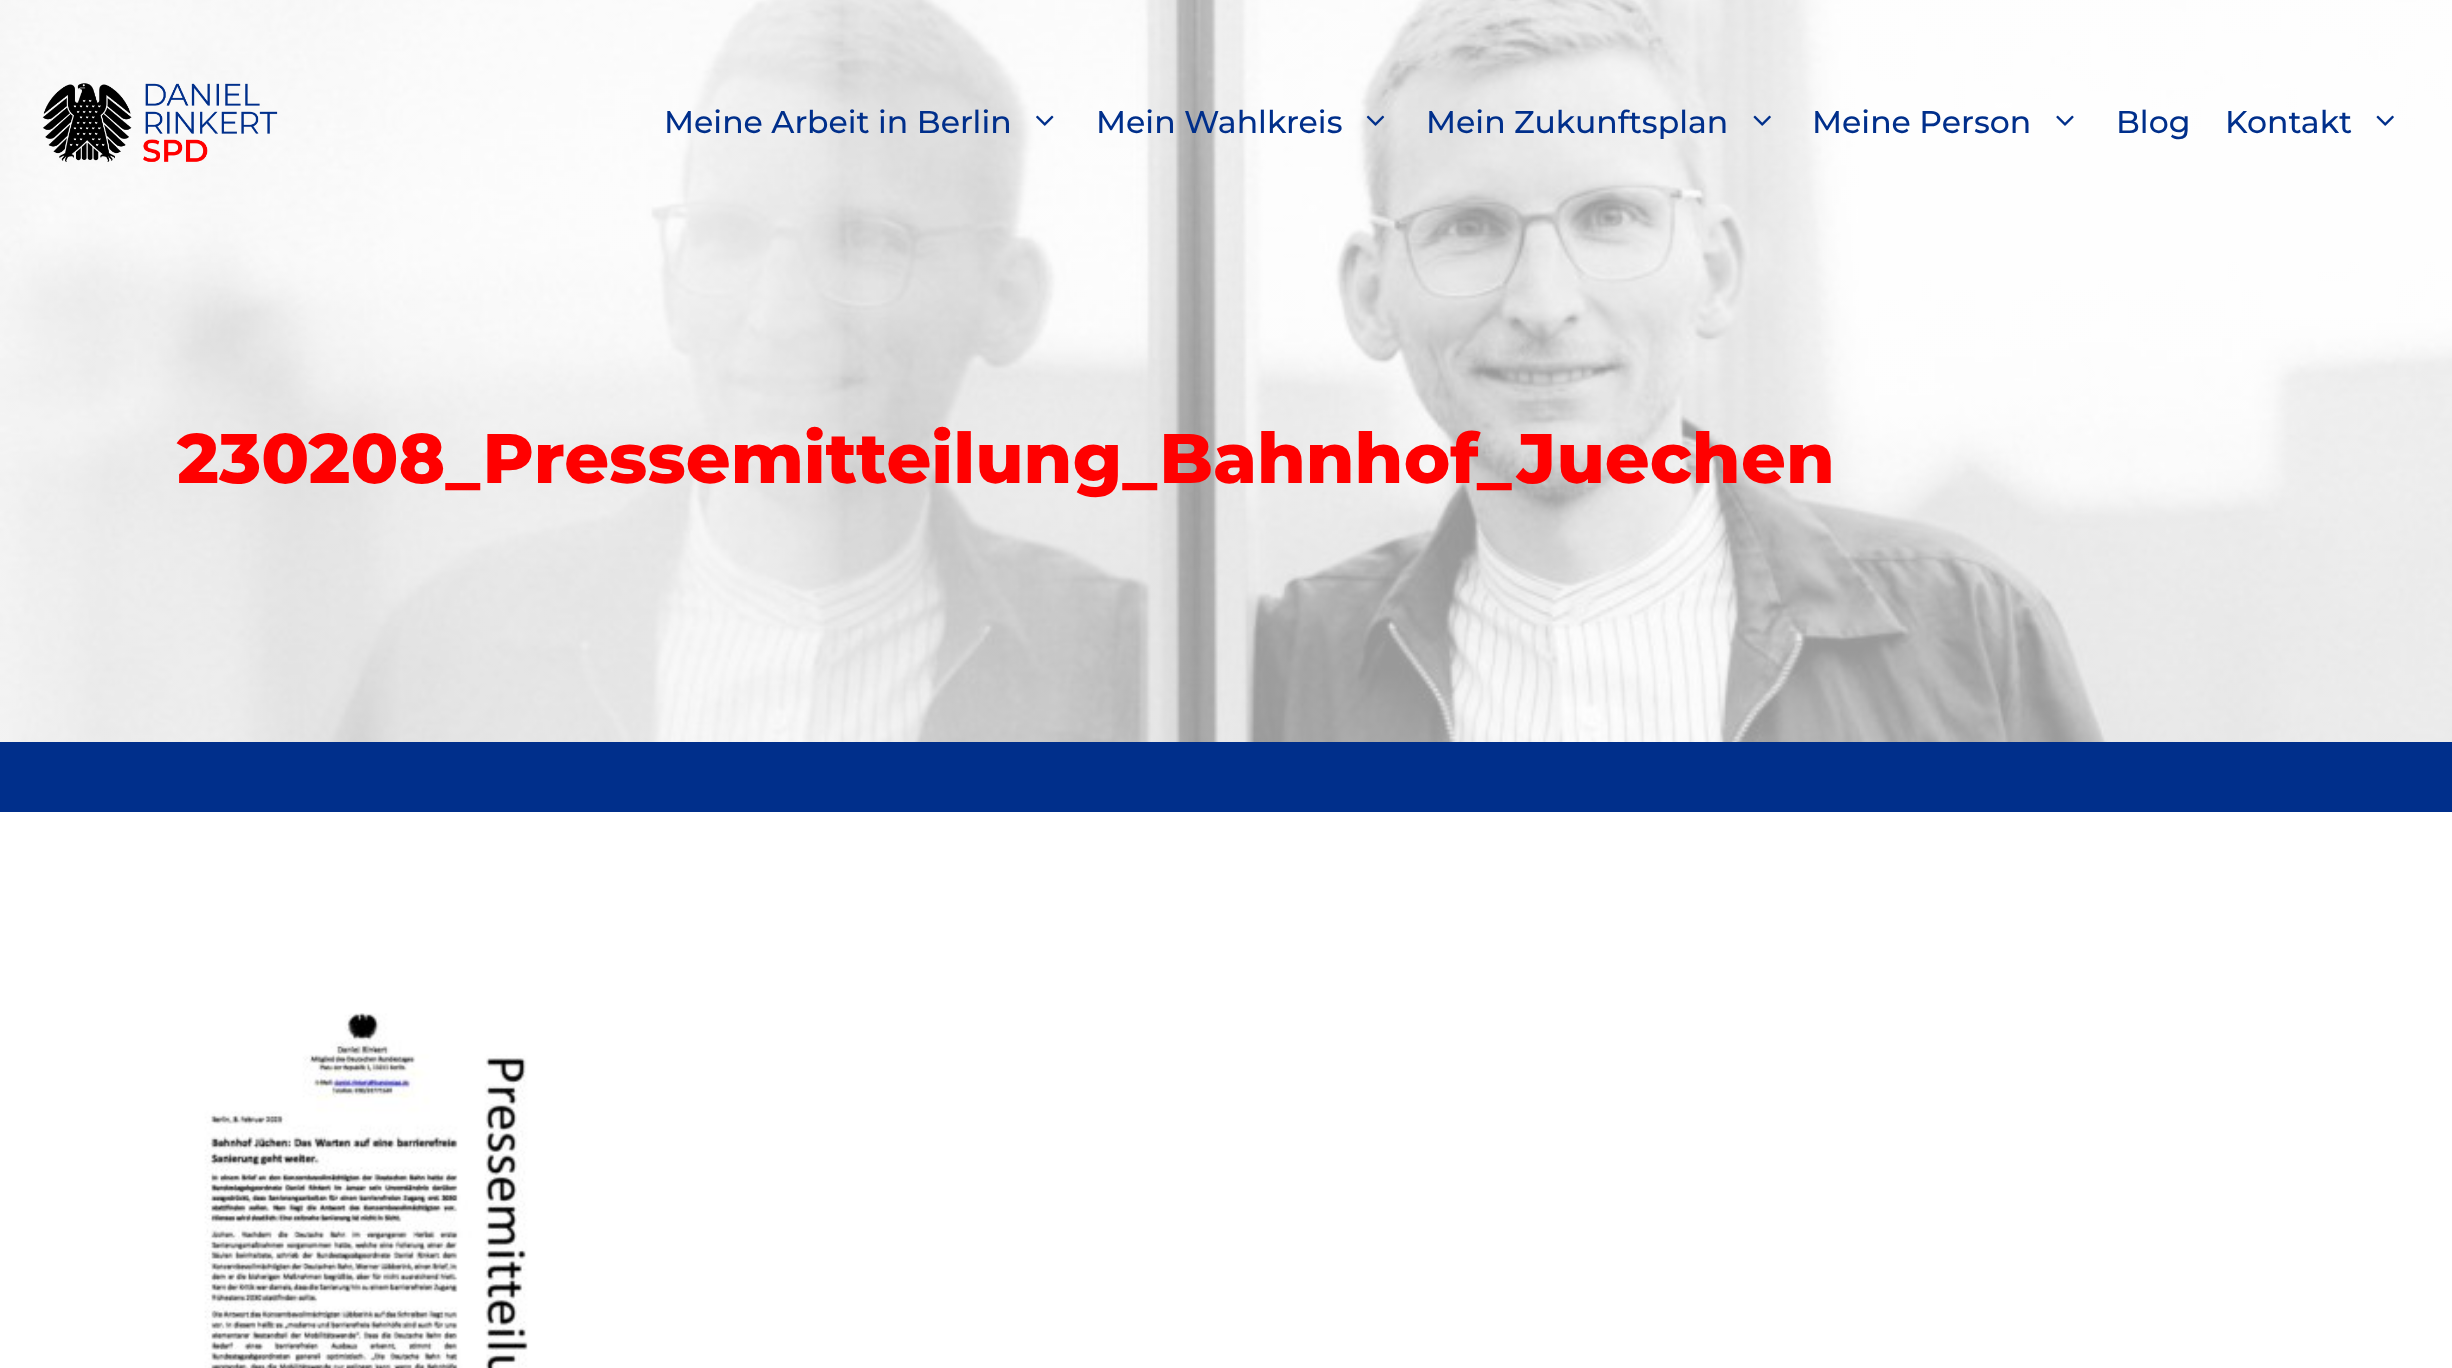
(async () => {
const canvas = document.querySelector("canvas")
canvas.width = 2452
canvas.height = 1368
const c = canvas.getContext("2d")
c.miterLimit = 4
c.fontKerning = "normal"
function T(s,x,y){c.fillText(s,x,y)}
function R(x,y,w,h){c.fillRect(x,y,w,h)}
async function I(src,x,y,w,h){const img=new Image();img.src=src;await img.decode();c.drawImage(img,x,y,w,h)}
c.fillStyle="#fff"
R(0,0,2452,1368)
await I("7.png",0,0,2452,742)
await I("1.png",42,83,236,79)
c.font="500 31.5px Montserrat"
c.fillStyle="#002f8b"
T("Meine Arbeit in Berlin",664,133)
await I("2.png",1036,115,18,11)
T("Mein Wahlkreis",1096,133)
await I("3.png",1366,115,19,11)
T("Mein Zukunftsplan",1426,133)
await I("4.png",1753,115,18,11)
T("Meine Person",1812,133)
await I("5.png",2056,115,18,11)
T("Blog",2116,133)
T("Kontakt",2225,133)
await I("6.png",2376,115,18,11)
c.font="800 70px Montserrat"
c.fillStyle="#f00"
T("230208_Pressemitteilung_Bahnhof_Juechen",177,483)
c.fillStyle="#002f8b"
R(0,742,2452,70)
await I("8.png",204,1013,324,355)
})()
